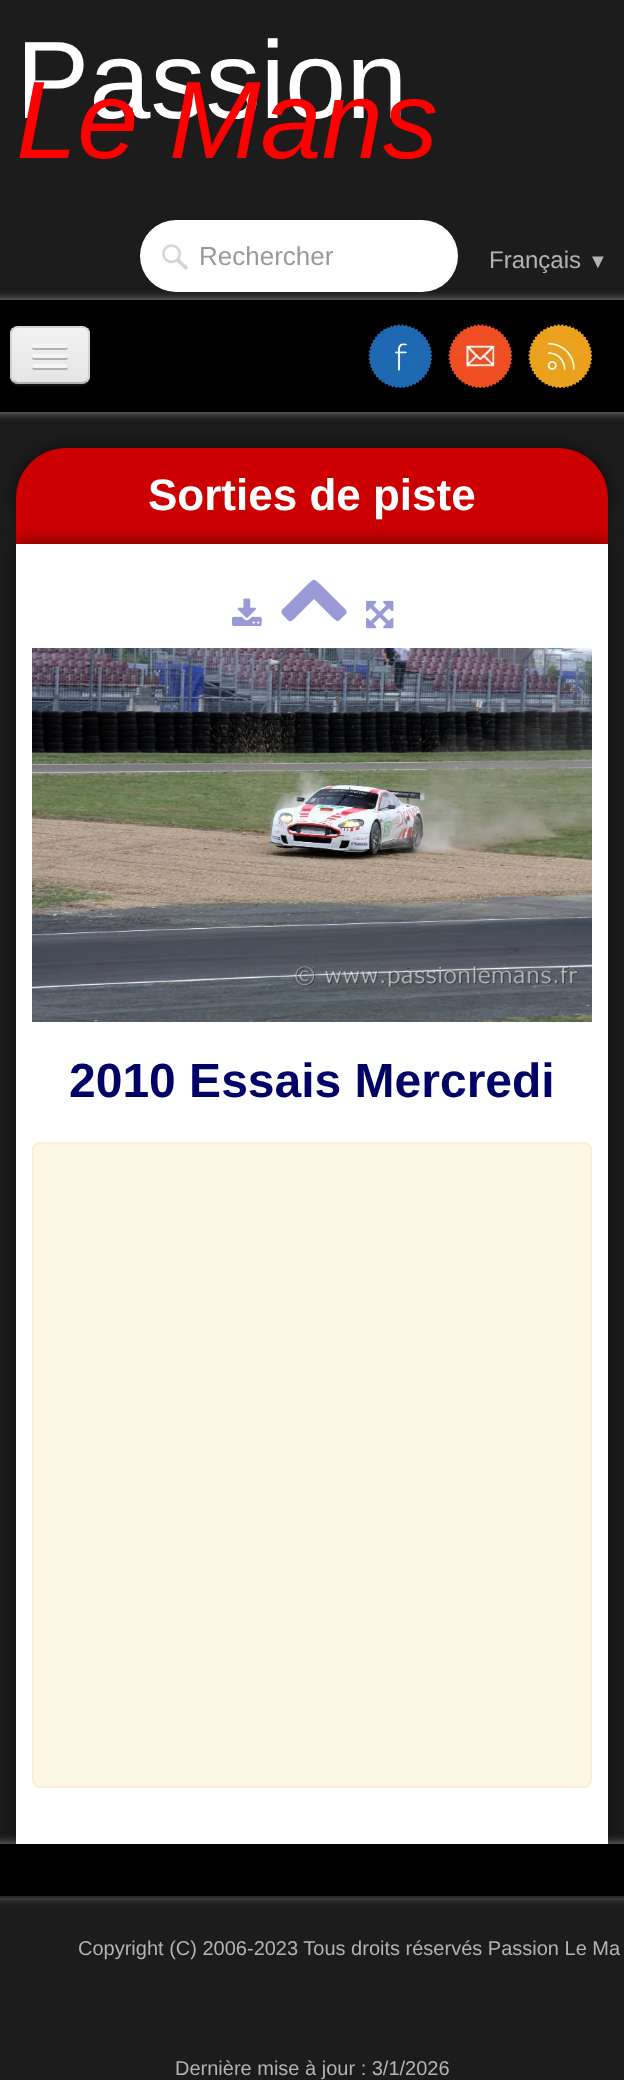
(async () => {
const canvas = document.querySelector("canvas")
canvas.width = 624
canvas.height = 2080
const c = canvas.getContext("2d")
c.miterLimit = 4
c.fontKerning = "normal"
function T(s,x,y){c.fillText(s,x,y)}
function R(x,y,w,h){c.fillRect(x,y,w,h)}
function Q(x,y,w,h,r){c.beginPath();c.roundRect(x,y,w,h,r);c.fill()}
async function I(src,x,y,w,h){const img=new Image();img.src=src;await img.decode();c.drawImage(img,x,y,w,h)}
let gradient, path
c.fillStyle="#1c1c1c"
R(0,0,624,2080)
c.font="110px Liberation Sans"
c.fillStyle="#fff"
T("Passion",16,118)
c.font="italic 110px Liberation Sans"
c.fillStyle="#f00"
T("Le Mans",16,158)
c.fillStyle="#fff"
Q(140,220,318,72,36)
await I("1.png",162,244,26,26)
c.font="26px Liberation Sans"
c.fillStyle="#999"
T("Rechercher",199,265)
c.font="24px Liberation Sans"
c.fillStyle="#b3b3b3"
T("Français",489,268)
c.font="20px Liberation Sans"
T("▼",588,268)
c.fillStyle="#ffffff80"
c.filter="blur(5px)"
c.beginPath()
c.roundRect(-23,300,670,112,8)
c.fill()
c.filter="none"
c.fillStyle="#000"
R(0,300,624,112)
c.fillStyle="#131313"
path = new Path2D("M10 376c0 12 9 10 19 10h42c10 0 19 2 19-10c0 4-4 8-8 8h-64c-4 0-8-4-8-8z")
c.fill(path)
c.fillStyle="#ededed"
Q(10,326,80,58,8)
c.save()
c.beginPath()
c.roundRect(10,326,80,58,8)
c.clip()
gradient = c.createLinearGradient(50,328,50,382)
gradient.addColorStop(0,"#f2f2f2")
gradient.addColorStop(1,"#e5e5e5")
c.fillStyle = gradient
R(10,328,80,54)
c.restore()
path = new Path2D("M87 381c-1.5 1.5-3 2-5 2h-64c-2 0-3.5-.5-5-2")
c.strokeStyle="#00000040"
c.lineWidth=2
c.stroke(path)
path = new Path2D("M13 381c-1.5-1.5-2-3-2-5v-42c0-2 .5-3.5 2-5c1.5-1.5 3-2 5-2h64c2 0 3.5 .5 5 2c1.5 1.5 2 3 2 5v42c0 2-.5 3.5-2 5")
c.strokeStyle="#0000001a"
c.stroke(path)
c.fillStyle="#b2b2b2"
path = new Path2D("M32.5 347c-2.5 4 6.5 3 7 3h21c.5 0 9.5 1 7-3c0 .5-1 1-1.5 1h-32c-.5 0-1.5-.5-1.5-1z")
c.fill(path)
c.fillStyle="#f5f5f5"
Q(32,344,36,4,2)
c.fillStyle="#b0b0b0"
path = new Path2D("M32.5 357c-2.5 4 6.5 3 7 3h21c.5 0 9.5 1 7-3c0 .5-1 1-1.5 1h-32c-.5 0-1.5-.5-1.5-1z")
c.fill(path)
c.fillStyle="#f5f5f5"
Q(32,354,36,4,2)
c.fillStyle="#aeaeae"
path = new Path2D("M32.5 367c-2.5 4 6.5 3 7 3h21c.5 0 9.5 1 7-3c0 .5-1 1-1.5 1h-32c-.5 0-1.5-.5-1.5-1z")
c.fill(path)
c.fillStyle="#f5f5f5"
Q(32,364,36,4,2)
await I("2.png",368,324,64,64)
await I("3.png",448,324,64,64)
await I("4.png",528,324,64,64)
c.fillStyle="#00000080"
c.filter="blur(10px)"
c.beginPath()
c.roundRect(16,448,592,96,50)
c.fill()
c.filter="none"
c.fillStyle="#c00"
c.beginPath()
c.roundRect(16,448,592,96,[50,50,0,0])
c.fill()
c.fillStyle="#00000080"
c.filter="blur(10px)"
c.beginPath()
c.rect(16,544,592,1300)
c.fill()
c.filter="none"
c.font="bold 44px Liberation Sans"
c.fillStyle="#fff"
T("Sorties de piste",148,510)
R(16,544,592,1300)
await I("5.png",232,598,30,28)
c.fillStyle="#999ad6"
path = new Path2D("M346 614c-8 7-7 10-14 3l-18-18l-18 18c-7 7-6 5-13-2c-4-4 0-6 4-10l20-20c8-7 6-7 14 0l20 20c1 1 8 6 5 9z")
c.fill(path)
await I("6.png",366,600,28,29)
await I("7.png",32,648,560,374)
c.font="bold 48px Liberation Sans"
c.fillStyle="#000266"
T("2010 Essais Mercredi",69,1097)
c.fillStyle="#fcf8e3"
c.beginPath()
c.roundRect(33,1143,558,644,7)
c.fill()
c.strokeStyle="#fbeed5"
c.stroke()
c.fillStyle="#ffffff80"
c.filter="blur(5px)"
c.beginPath()
c.rect(-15,1844,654,52)
c.fill()
c.filter="none"
c.fillStyle="#000"
R(0,1844,624,52)
c.fillStyle="#292929"
R(0,1896,624,2)
c.font="20px Liberation Sans"
c.fillStyle="#b3b3b3"
T("Copyright (C) 2006-2023 Tous droits réservés Passion Le Ma",78,1955)
T("Dernière mise à jour : 3/1/2026",175,2075)
})()
